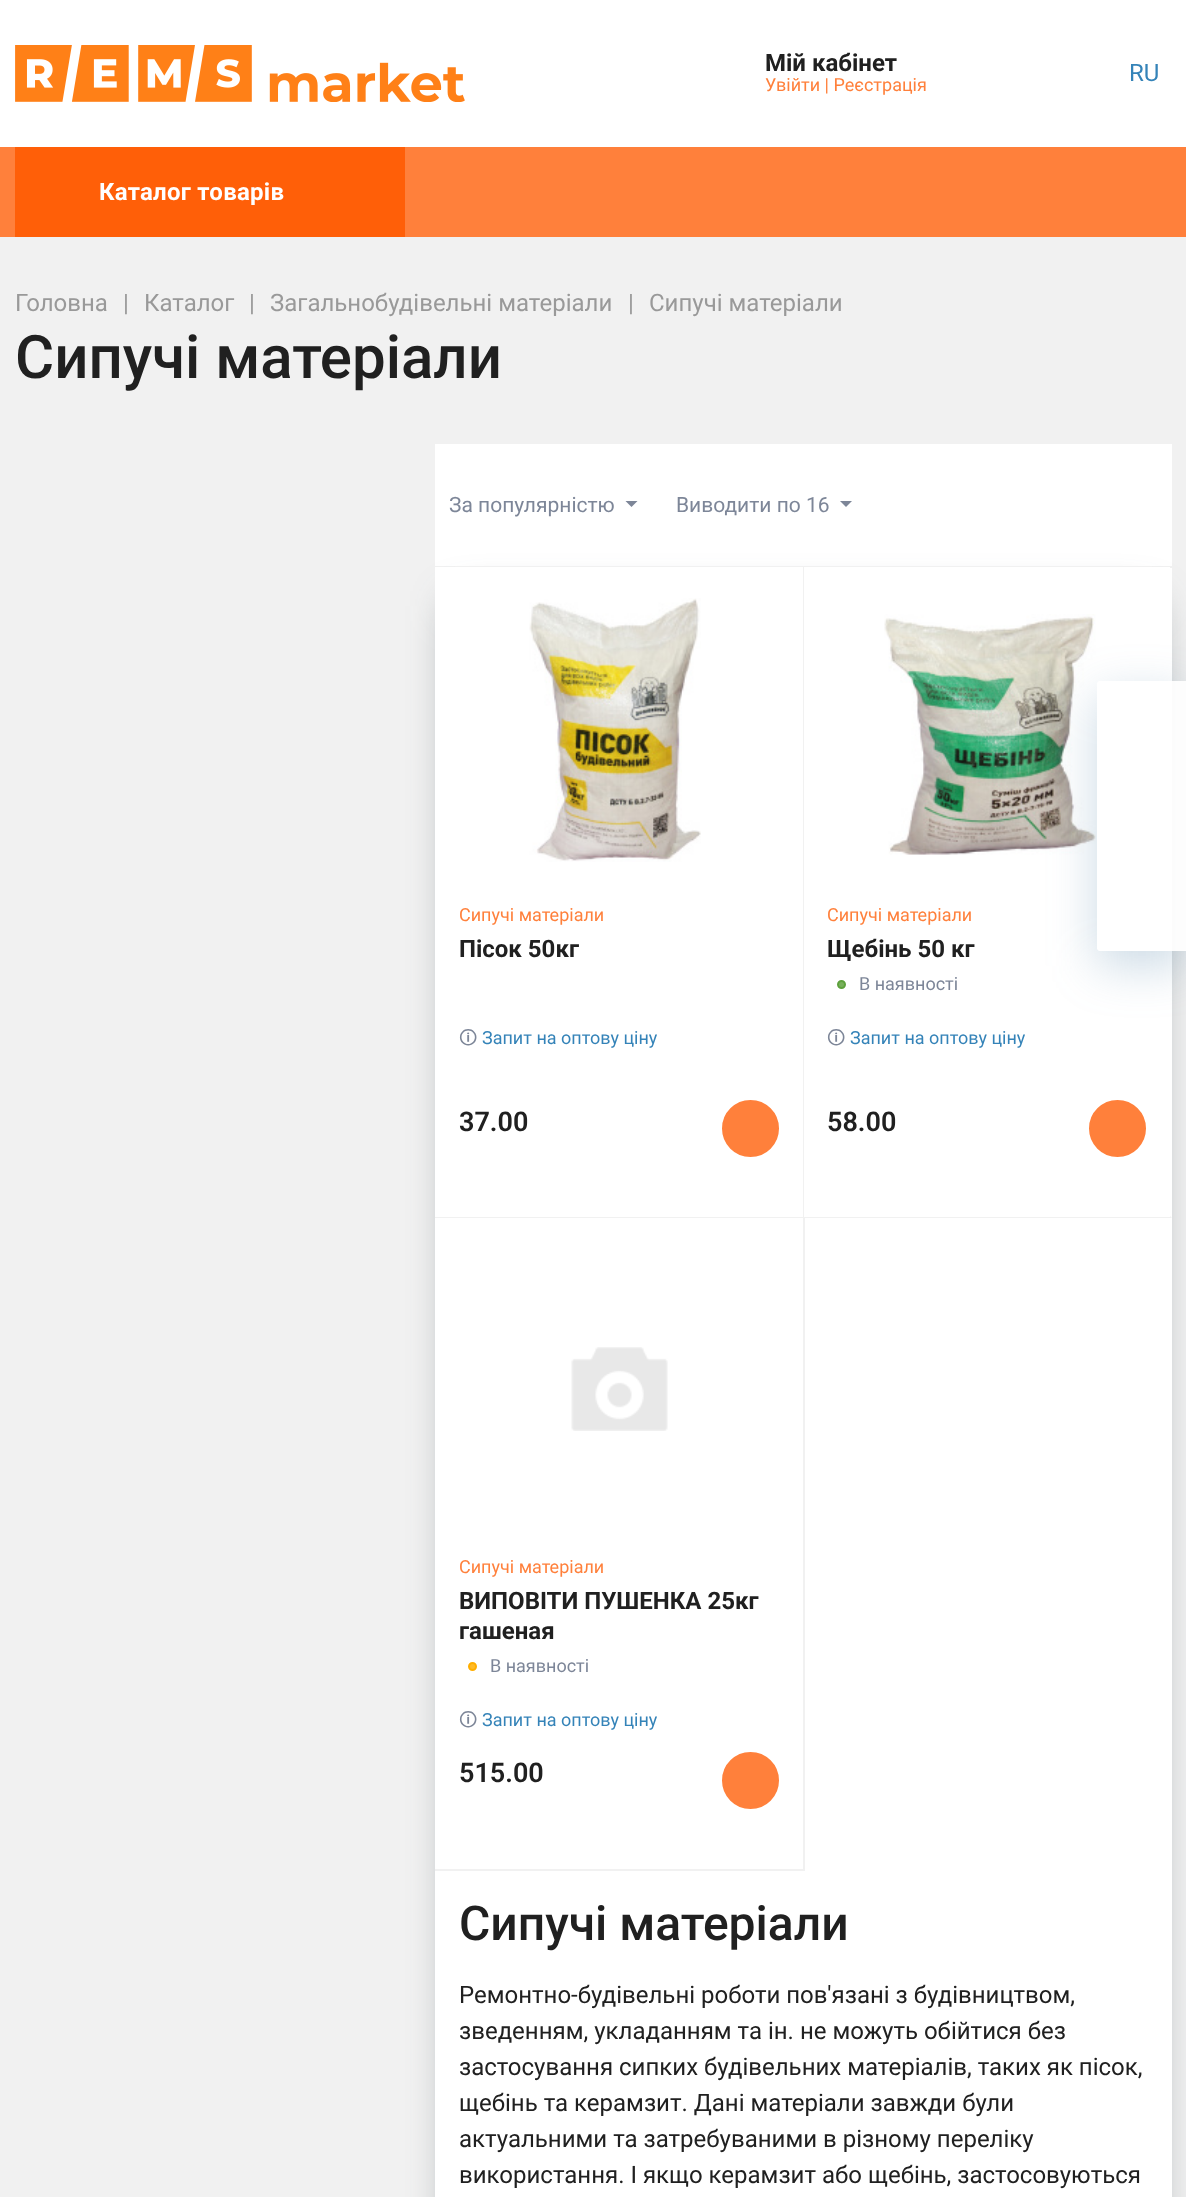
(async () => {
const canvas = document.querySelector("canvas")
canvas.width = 1186
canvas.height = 2197
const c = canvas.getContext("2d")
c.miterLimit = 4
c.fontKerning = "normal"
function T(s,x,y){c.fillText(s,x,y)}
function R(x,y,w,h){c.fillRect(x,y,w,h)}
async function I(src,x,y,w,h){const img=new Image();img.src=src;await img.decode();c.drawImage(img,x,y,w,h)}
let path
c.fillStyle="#f1f1f1"
R(0,0,1186,2197)
c.fillStyle="#fff"
R(0,0,1186,147)
await I("1.png",15,45,450,57)
c.font="bold 24px Roboto"
c.fillStyle="#202020"
T("Мій кабінет",765,71)
c.font="18px Roboto"
c.fillStyle="#ff803b"
T("Увійти | Реєстрація",765,91)
c.font="24px Roboto"
c.fillStyle="#3483b8"
T("RU",1129,81)
c.fillStyle="#ff803b"
R(0,147,1186,90)
c.fillStyle="#ff5f08"
R(15,147,390,90)
c.letterSpacing="0.25px"
c.font="bold 24px Roboto"
c.fillStyle="#fff"
T("Каталог товарів",99,200)
c.letterSpacing="0px"
c.font="24px Roboto"
c.fillStyle="#999"
T("Головна",15,311)
T("|",123,311)
T("Каталог",144,311)
T("|",249,311)
T("Загальнобудівельні матеріали",270,311)
T("|",628,311)
T("Сипучі матеріали",649,311)
c.font="500 60px Roboto"
c.fillStyle="#202020"
T("Сипучі матеріали",15,378)
c.fillStyle="#fff"
R(435,444,737,122)
c.font="21px Roboto"
c.fillStyle="#7d8698"
T("За популярністю",449,512)
path = new Path2D("M625.5 501h12l-6 6z")
c.fill(path)
T("Виводити по 16",676,512)
path = new Path2D("M840 501h12l-6 6z")
c.fill(path)
c.fillStyle="#3d4851bf"
c.filter="blur(22.5px)"
c.beginPath()
c.rect(458,606,691,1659)
c.fill()
c.filter="none"
c.fillStyle="#fff"
R(435,568,737,1629)
c.fillStyle="#f1f1f1"
R(455,566,697,2)
R(803,567,1,651)
R(435,1217,369,1)
c.fillStyle="#fff"
R(435,567,368,1)
await I("2.png",529,598,172,264)
c.font="18px Roboto"
c.fillStyle="#ff803b"
T("Сипучі матеріали",459,921)
c.font="bold 24px Roboto"
c.fillStyle="#202020"
T("Пісок 50кг",459,957)
c.font="18px 'Noto Sans Symbols 2'"
c.fillStyle="#7d8698"
T("🛈",459,1044)
c.font="18px Roboto"
c.fillStyle="#3483b8"
T("Запит на оптову ціну",482,1044)
c.font="600 27px Roboto"
c.fillStyle="#202020"
T("37.00",459,1131)
c.fillStyle="#ff803b"
c.beginPath()
c.arc(750.5,1128.5,27.5,0,7)
c.fill()
c.strokeStyle="#ff803b"
c.lineWidth=2
c.stroke()
c.fillStyle="#f1f1f1"
path = new Path2D("M1172 1218h-368v-2h366z")
c.fill(path)
c.fillStyle="#fff"
R(804,567,366,650)
await I("3.png",884,614,212,241)
c.font="18px Roboto"
c.fillStyle="#ff803b"
T("Сипучі матеріали",827,921)
c.font="bold 24px Roboto"
c.fillStyle="#202020"
T("Щебінь 50 кг",827,957)
c.fillStyle="#78b05c"
c.beginPath()
c.arc(841.5,984.5,3.5,0,7)
c.fill()
c.strokeStyle="#5ea13d"
c.stroke()
c.font="18px Roboto"
c.fillStyle="#7d8698"
T("В наявності",859,990)
c.font="18px 'Noto Sans Symbols 2'"
T("🛈",827,1044)
c.font="18px Roboto"
c.fillStyle="#3483b8"
T("Запит на оптову ціну",850,1044)
c.font="600 27px Roboto"
c.fillStyle="#202020"
T("58.00",827,1131)
c.fillStyle="#ff803b"
c.beginPath()
c.arc(1117.5,1128.5,27.5,0,7)
c.fill()
c.strokeStyle="#ff803b"
c.stroke()
c.fillStyle="#f1f1f1"
R(803,1218,2,653)
R(435,1869,369,2)
await I("4.png",571,1347,97,84)
c.font="18px Roboto"
c.fillStyle="#ff803b"
T("Сипучі матеріали",459,1573)
c.font="bold 24px Roboto"
c.fillStyle="#202020"
T("ВИПОВІТИ ПУШЕНКА 25кг",459,1609)
T("гашеная",459,1639)
c.fillStyle="#ffbb29"
c.beginPath()
c.arc(472.5,1666.5,3.5,0,7)
c.fill()
c.strokeStyle="#ffae00"
c.stroke()
c.font="18px Roboto"
c.fillStyle="#7d8698"
T("В наявності",490,1672)
c.font="18px 'Noto Sans Symbols 2'"
T("🛈",459,1726)
c.font="18px Roboto"
c.fillStyle="#3483b8"
T("Запит на оптову ціну",482,1726)
c.font="600 27px Roboto"
c.fillStyle="#202020"
T("515.00",459,1782)
c.fillStyle="#ff803b"
c.beginPath()
c.arc(750.5,1780.5,27.5,0,7)
c.fill()
c.strokeStyle="#ff803b"
c.stroke()
c.font="500 48px Roboto"
c.fillStyle="#202020"
T("Сипучі матеріали",459,1940)
c.font="24px Roboto"
T("Ремонтно-будівельні роботи пов'язані з будівництвом,",459,2003)
T("зведенням, укладанням та ін. не можуть обійтися без",459,2039)
T("застосування сипких будівельних матеріалів, таких як пісок,",459,2075)
T("щебінь та керамзит. Дані матеріали завжди були",459,2111)
T("актуальними та затребуваними в різному переліку",459,2147)
T("використання. І якщо керамзит або щебінь, застосовуються",459,2183)
c.save()
path = new Path2D("M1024 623h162v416h-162zm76 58h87v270h-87c-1.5 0-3-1.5-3-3v-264c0-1.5 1.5-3 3-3z")
c.clip(path,"evenodd")
c.fillStyle="#5485a94d"
c.filter="blur(24px)"
c.beginPath()
c.roundRect(1097,696,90,270,3)
c.fill()
c.filter="none"
c.restore()
c.fillStyle="#ffffffe6"
path = new Path2D("M1100 681h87v270h-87c-1.5 0-3-1.5-3-3v-264c0-1.5 1.5-3 3-3z")
c.fill(path)
})()
